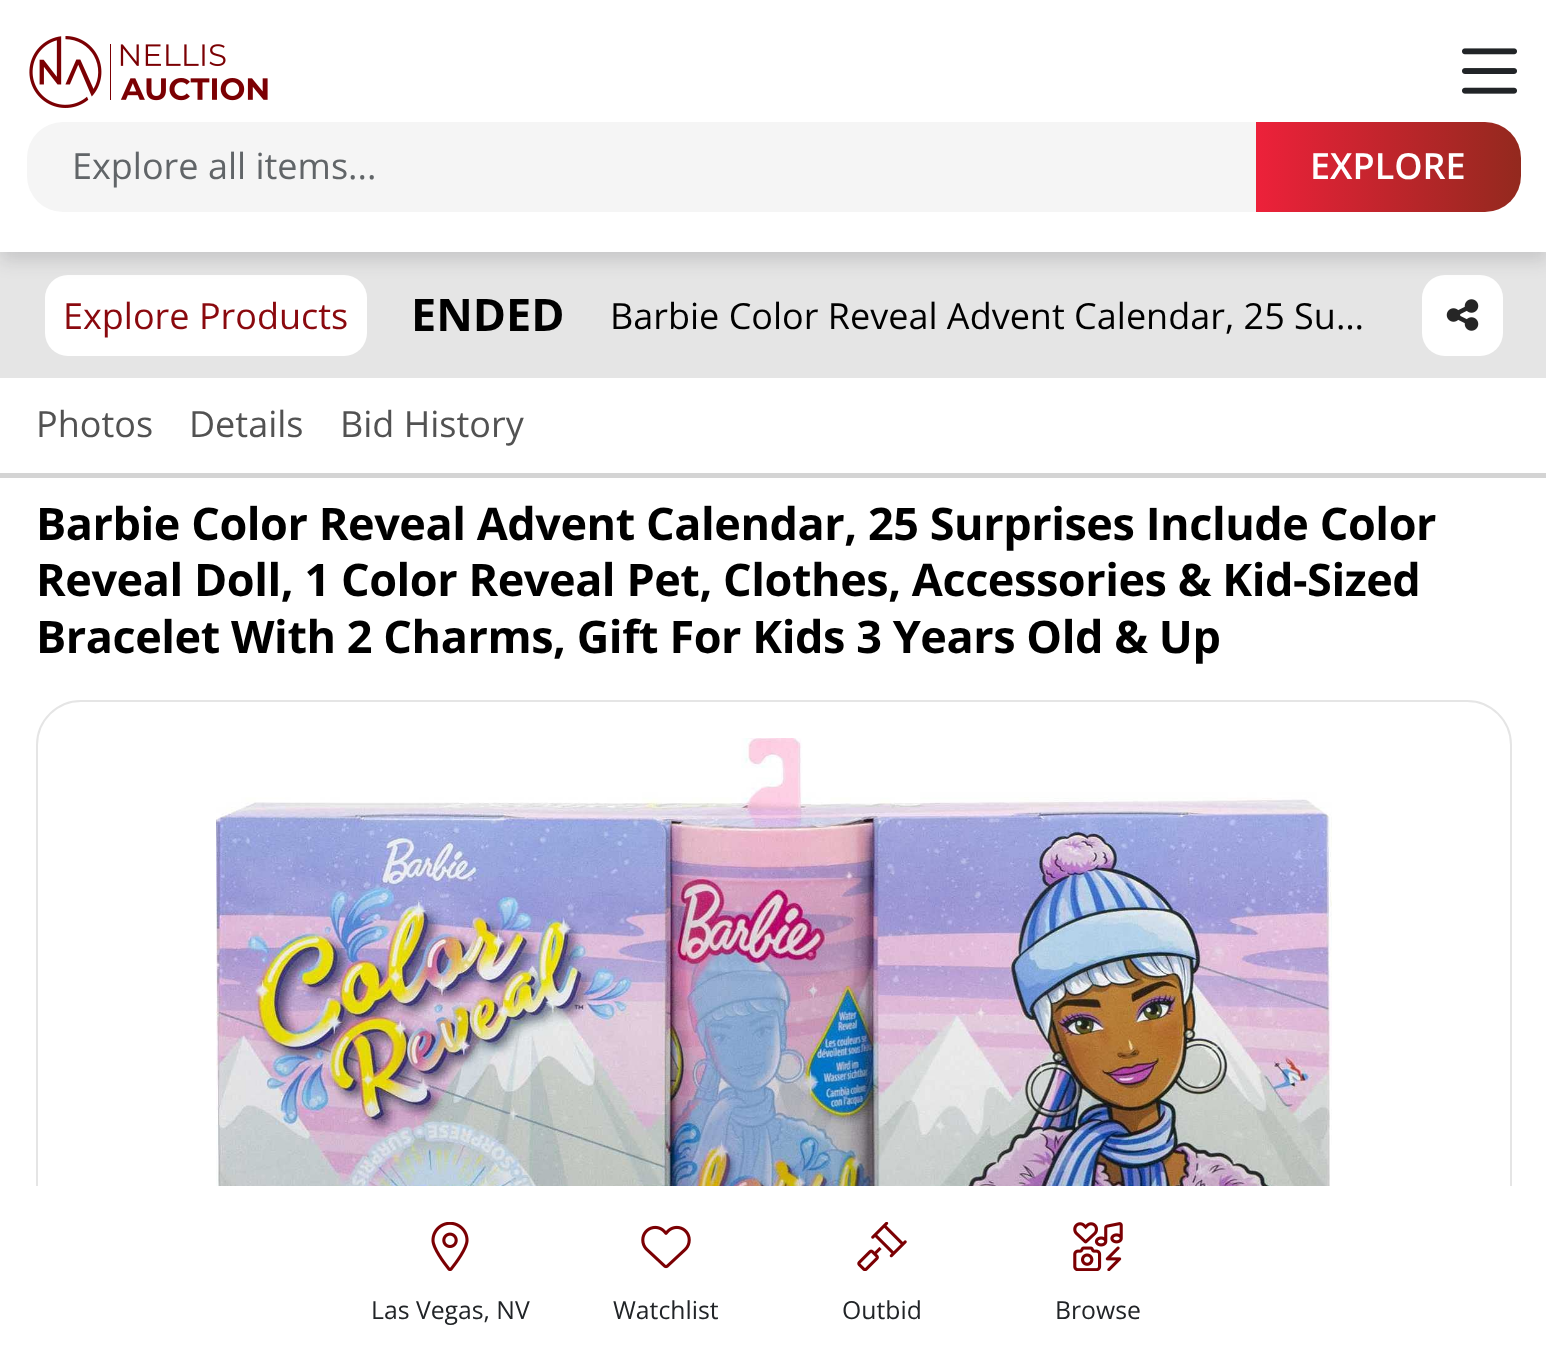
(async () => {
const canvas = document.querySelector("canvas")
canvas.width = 1546
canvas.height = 1365
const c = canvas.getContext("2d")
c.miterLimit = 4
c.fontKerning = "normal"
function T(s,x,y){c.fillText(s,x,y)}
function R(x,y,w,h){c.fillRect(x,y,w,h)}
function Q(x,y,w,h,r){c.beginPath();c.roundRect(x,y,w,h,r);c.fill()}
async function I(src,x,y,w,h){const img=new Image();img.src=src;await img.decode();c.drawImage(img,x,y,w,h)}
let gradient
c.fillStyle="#fff"
R(0,0,1546,1365)
c.fillStyle="#e5e5e5"
R(0,252,1546,126)
c.fillStyle="#fff"
Q(45,275,322,81,23)
Q(1422,275,81,81,23)
c.fillStyle="#21242726"
c.filter="blur(9px)"
c.beginPath()
c.rect(0,9,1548,252)
c.fill()
c.filter="none"
c.fillStyle="#fff"
R(0,0,1546,252)
await I("1.png",29,36,239,72)
await I("2.png",1462,48,55,46)
c.fillStyle="#f5f5f5"
c.beginPath()
c.roundRect(27,122,1229,90,[36,0,0,36])
c.fill()
c.font="36px Open Sans"
c.fillStyle="#616568"
T("Explore all items...",72,179)
gradient = c.createLinearGradient(1256,167,1521,167)
gradient.addColorStop(0,"#ed213a")
gradient.addColorStop(1,"#93291e")
c.fillStyle = gradient
c.beginPath()
c.roundRect(1256,122,265,90,[0,36,36,0])
c.fill()
c.font="600 36px Open Sans"
c.fillStyle="#fff"
T("EXPLORE",1310,179)
c.font="36px Open Sans"
c.fillStyle="#8a090e"
T("Explore Products",63,329)
c.font="bold 45px Open Sans"
c.fillStyle="#000"
T("ENDED",411,331)
c.font="36px Open Sans"
T("Barbie Color Reveal Advent Calendar, 25 Su…",610,329)
await I("3.png",1446,299,33,32)
c.fillStyle="#d4d4d4"
R(0,473,1546,5)
c.fillStyle="#525252"
T("Photos",36,437)
T("Details",189,437)
T("Bid History",340,437)
c.letterSpacing="-0.45px"
c.font="bold 45px Open Sans"
c.fillStyle="#000"
T("Barbie Color Reveal Advent Calendar, 25 Surprises Include Color",36,540)
T("Reveal Doll, 1 Color Reveal Pet, Clothes, Accessories & Kid-Sized",36,596)
T("Bracelet With 2 Charms, Gift For Kids 3 Years Old & Up",36,653)
c.beginPath()
c.roundRect(37,701,1474,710,44)
c.strokeStyle="#e5e5e5"
c.lineWidth=2
c.stroke()
await I("4.png",216,738,1116,448)
c.fillStyle="#fff"
R(36,1186,1476,179)
await I("5.png",431,1222,38,49)
c.letterSpacing="0px"
c.font="24.75px Open Sans"
c.fillStyle="#212427"
T("Las Vegas, NV",371,1319)
await I("6.png",641,1225,50,44)
T("Watchlist",613,1319)
await I("7.png",857,1222,50,49)
T("Outbid",842,1319)
await I("8.png",1073,1222,50,49)
T("Browse",1055,1319)
})()
